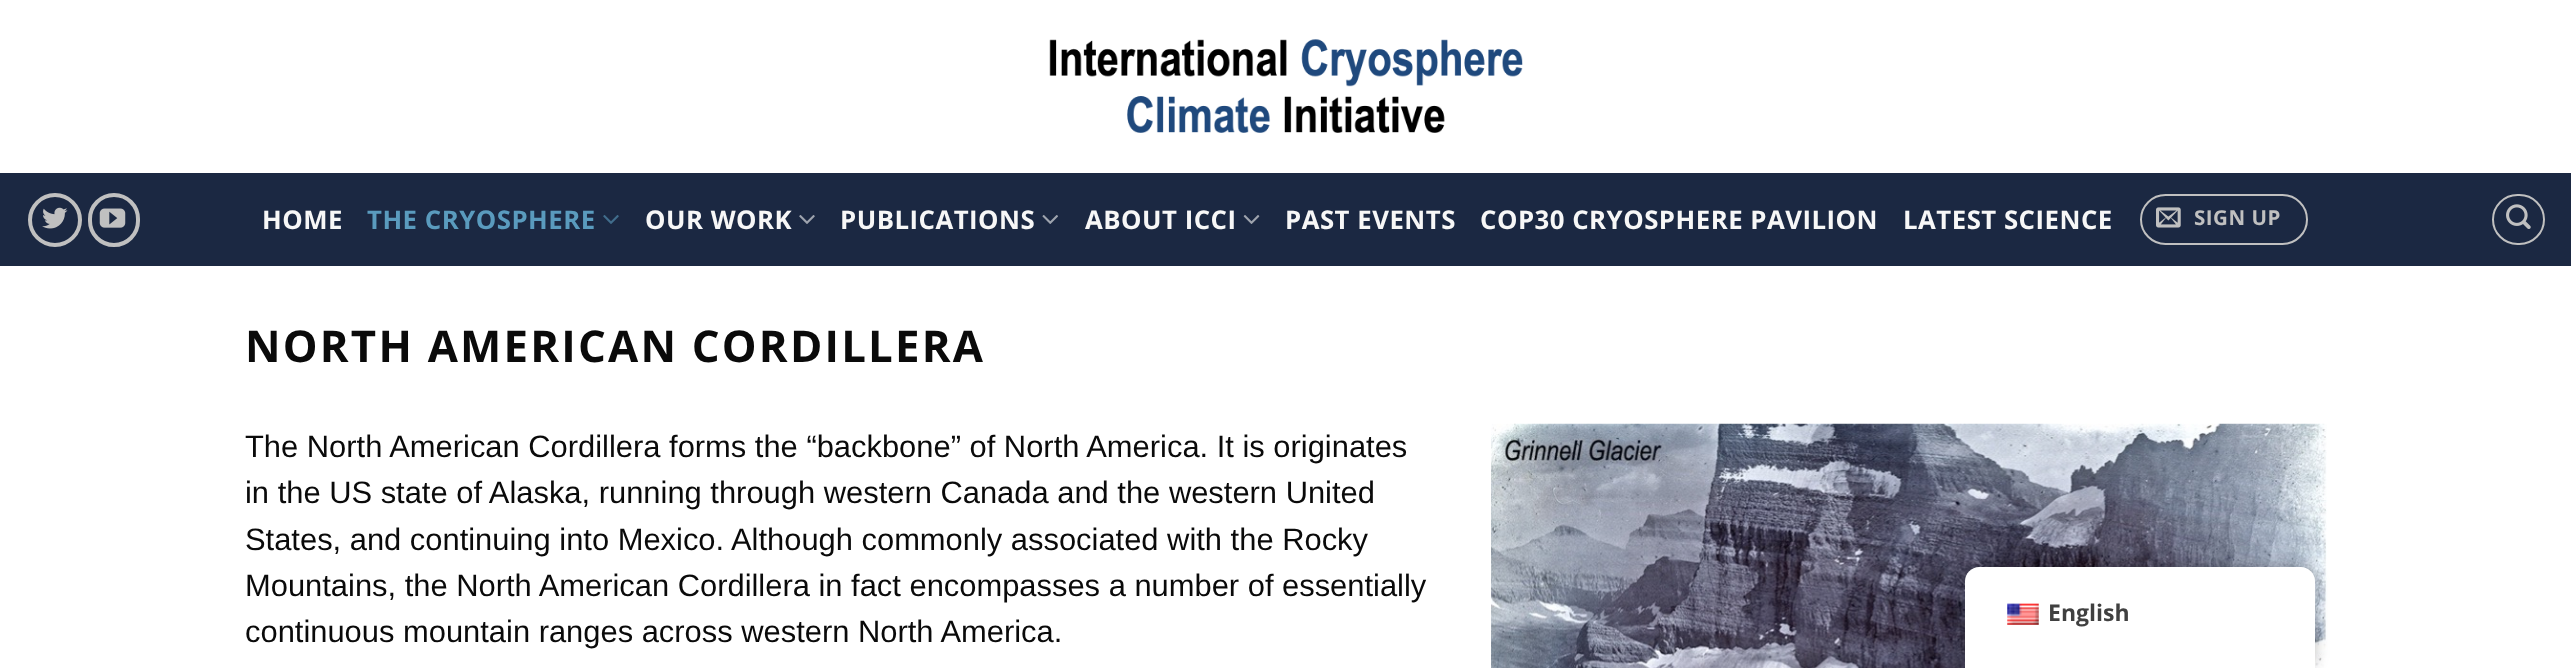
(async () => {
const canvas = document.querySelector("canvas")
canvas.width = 2571
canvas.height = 668
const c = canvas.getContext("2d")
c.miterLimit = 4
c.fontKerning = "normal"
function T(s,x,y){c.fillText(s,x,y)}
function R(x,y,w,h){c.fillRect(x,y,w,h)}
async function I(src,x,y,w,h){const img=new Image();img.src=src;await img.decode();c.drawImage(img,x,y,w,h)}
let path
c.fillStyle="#fff"
R(0,0,2571,668)
await I("1.png",1049,39,474,94)
c.fillStyle="#1b2842"
R(0,173,2571,93)
c.beginPath()
c.arc(55,220,25,0,7)
c.strokeStyle="#c0c0c0"
c.lineWidth=4
c.stroke()
await I("2.png",42,207,26,22)
c.beginPath()
c.roundRect(90,195,48,50,24)
c.stroke()
await I("3.png",99,208,27,20)
c.letterSpacing="0.5px"
c.font="bold 25.75px Open Sans"
c.fillStyle="#f7f7f7"
T("HOME",262,229)
c.fillStyle="#5a9bbe"
T("THE CRYOSPHERE",367,229)
await I("4.png",603,215,16,9)
c.fillStyle="#f7f7f7"
T("OUR WORK",645,229)
await I("5.png",799,215,16,9)
T("PUBLICATIONS",840,229)
await I("6.png",1042,215,16,9)
T("ABOUT ICCI",1085,229)
await I("7.png",1243,215,17,9)
T("PAST EVENTS",1285,229)
T("COP30 CRYOSPHERE PAVILION",1480,229)
T("LATEST SCIENCE",1903,229)
c.beginPath()
c.roundRect(2141,195,166,49,24.5)
c.lineWidth=2
c.stroke()
await I("8.png",2156,207,25,21)
c.font="bold 20.5px Open Sans"
c.fillStyle="#c0c0c0"
T("SIGN UP",2194,225)
c.beginPath()
c.roundRect(2493,195,51,49,24.5)
c.stroke()
await I("9.png",2506,204,25,25)
c.letterSpacing="2.2px"
c.font="bold 43.75px Open Sans"
c.fillStyle="#0a0a0a"
T("NORTH AMERICAN CORDILLERA",245,362)
c.letterSpacing="0px"
c.font="30.9px Liberation Sans"
T("The North American Cordillera forms the “backbone” of North America. It is originates",245,457)
T("in the US state of Alaska, running through western Canada and the western United",245,503)
T("States, and continuing into Mexico. Although commonly associated with the Rocky",245,550)
T("Mountains, the North American Cordillera in fact encompasses a number of essentially",245,596)
T("continuous mountain ranges across western North America.",245,642)
await I("10.png",1491,423,836,245)
c.fillStyle="#00000040"
c.filter="blur(7px)"
c.beginPath()
c.roundRect(1965,567,350,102,14)
c.fill()
c.filter="none"
c.fillStyle="#fff"
path = new Path2D("M1979 567h322c7.5 0 14 6.5 14 14v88h-350v-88c0-7.5 6.5-14 14-14z")
c.fill(path)
await I("11.png",2007,603,32,22)
c.font="bold 23px Open Sans"
c.fillStyle="#404040"
T("English",2048,621)
})()
